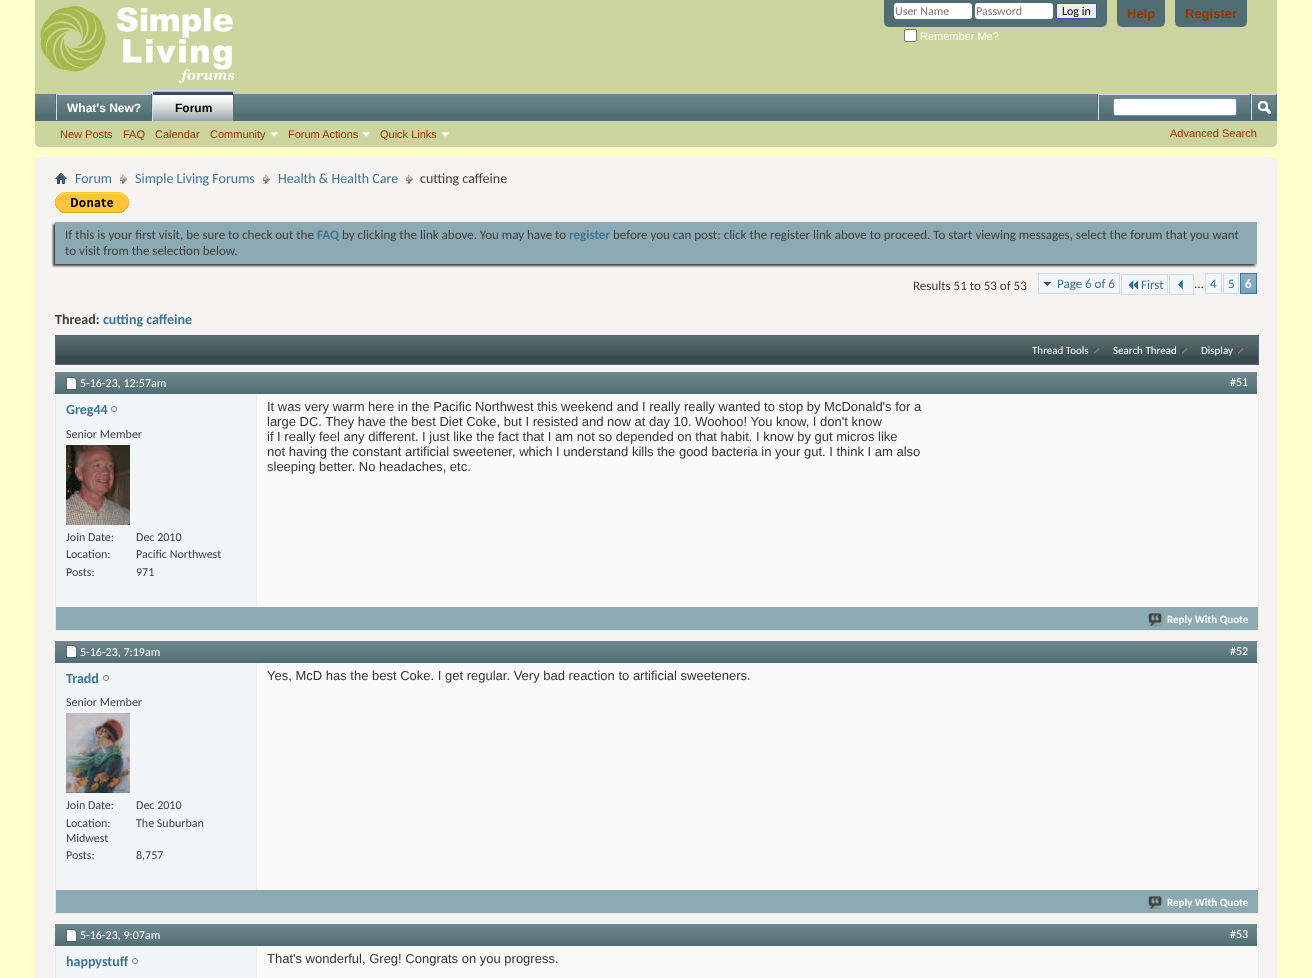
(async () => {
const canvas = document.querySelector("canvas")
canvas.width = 1312
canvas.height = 978
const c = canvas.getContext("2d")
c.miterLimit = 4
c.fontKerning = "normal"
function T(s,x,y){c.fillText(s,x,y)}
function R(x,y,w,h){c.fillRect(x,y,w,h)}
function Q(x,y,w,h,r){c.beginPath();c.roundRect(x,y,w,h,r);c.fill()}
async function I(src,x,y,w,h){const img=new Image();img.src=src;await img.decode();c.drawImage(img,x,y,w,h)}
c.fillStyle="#ffc"
R(0,0,1312,978)
c.fillStyle="#ccd59d"
c.beginPath()
c.roundRect(35,0,1242,147,[0,0,5,5])
c.fill()
await I("1.png",40,6,195,77)
c.fillStyle="#4f6d73"
c.beginPath()
c.roundRect(884,0,223,27,[0,0,5,5])
c.fill()
c.fillStyle="#fff"
Q(894,3,78,16,3)
c.font="12px Carlito"
c.fillStyle="#777"
T("User Name",895,15)
c.fillStyle="#fff"
Q(975,3,78,16,3)
c.fillStyle="#777"
T("Password",976,15)
c.fillStyle="#efefef"
c.beginPath()
c.rect(1056.5,3.5,40,15)
c.fill()
c.strokeStyle="#415d8d"
c.stroke()
c.fillStyle="#000"
T("Log in",1062,15)
c.fillStyle="#fff"
c.beginPath()
c.roundRect(904.5,29.5,12,12,1.5)
c.fill()
c.strokeStyle="#767676"
c.stroke()
c.font="11px Liberation Sans"
T("Remember Me?",920,40)
c.fillStyle="#4f6d73"
c.beginPath()
c.roundRect(1117,0,48,27,[0,0,5,5])
c.fill()
c.font="bold 13px Liberation Sans"
c.fillStyle="#930"
T("Help",1127,18)
c.fillStyle="#4f6d73"
c.beginPath()
c.roundRect(1175,0,72,27,[0,0,5,5])
c.fill()
c.fillStyle="#930"
T("Register",1185,18)
c.fillStyle="#ccd59d"
c.beginPath()
c.roundRect(35,94,1242,53,[0,0,5,5])
c.fill()
c.fillStyle="#4f6d73"
R(35,94,1242,26)
await I("2.png",35,94,1241,20)
R(151,94,1,27)
R(55,94,1,27)
R(57,95,94,19)
await I("3.png",57,95,94,20)
c.fillStyle="#cedfeb"
R(56,94,95,1)
R(56,94,1,27)
c.font="bold 12px Liberation Sans"
c.fillStyle="#fff"
T("What's New?",67,112)
c.fillStyle="#4f6d73"
R(233,94,1,26)
R(35,120,1242,1)
c.fillStyle="#384c50"
R(153,91,80,30)
await I("4.png",153,91,80,30)
c.fillStyle="#cedfeb"
R(152,90,81,1)
R(152,90,1,31)
c.fillStyle="#000"
T("Forum",175,112)
c.font="11px Liberation Sans"
c.fillStyle="#930"
T("New Posts",60,138)
T("FAQ",123,138)
T("Calendar",155,138)
T("Community",210,138)
await I("5.png",270,131,9,6)
T("Forum Actions",288,138)
await I("5.png",362,131,9,6)
T("Quick Links",380,138)
await I("5.png",441,131,9,6)
c.fillStyle="#4f6d73"
R(1097,94,1,26)
c.fillStyle="#cedfeb"
R(1098,94,152,1)
R(1098,94,1,26)
c.fillStyle="#fff"
c.beginPath()
c.roundRect(1113.5,98.5,123,17,2.5)
c.fill()
c.strokeStyle="#6b91ab"
c.stroke()
c.fillStyle="#4f6d73"
R(1250,94,1,26)
c.fillStyle="#cedfeb"
R(1251,94,25,1)
R(1251,94,1,26)
await I("6.png",1258,101,13,14)
c.fillStyle="#930"
T("Advanced Search",1170,137)
c.fillStyle="#f5f4f2"
Q(35,157,1242,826,5)
await I("7.png",55,173,12,11)
await I("8.png",120,174,7,10)
c.font="14px Carlito"
c.fillStyle="#417394"
T("Forum",75,183)
await I("8.png",263,174,7,10)
T("Simple Living Forums",135,183)
await I("8.png",406,174,7,10)
T("Health & Health Care",278,183)
c.fillStyle="#3e3e3e"
T("cutting caffeine",420,183)
await I("9.png",55,192,74,21)
c.filter="blur(1px)"
c.beginPath()
c.rect(53,224,1202,42)
c.fill()
c.filter="none"
c.fillStyle="#8caab1"
R(55,222,1202,42)
c.font="13px Carlito"
c.fillStyle="#3e3e3e"
T("If this is your first visit, be sure to check out the",65,239)
c.font="bold 13px Carlito"
c.fillStyle="#417394"
T("FAQ",317,239)
c.font="13px Carlito"
c.fillStyle="#3e3e3e"
T("by clicking the link above. You may have to",342,239)
c.font="bold 13px Carlito"
c.fillStyle="#417394"
T("register",569,239)
c.font="13px Carlito"
c.fillStyle="#3e3e3e"
T("before you can post: click the register link above to proceed. To start viewing messages, select the forum that you want",613,239)
T("to visit from the selection below.",65,255)
T("Results 51 to 53 of 53",913,290)
c.fillStyle="#f2f6f8"
R(1039,274,80,19)
await I("10.png",1043,281,9,6)
c.strokeStyle="#cedfeb"
c.strokeRect(1038.5,273.5,81,20)
c.fillStyle="#417394"
T("Page 6 of 6",1057,288)
c.fillStyle="#f2f6f8"
R(1122,275,45,19)
await I("11.png",1128,280,10,10)
c.fillStyle="#417394"
T("First",1141,289)
c.fillStyle="#cedfeb"
R(1121,274,47,1)
R(1121,294,20,1)
R(1121,274,1,21)
R(1167,274,1,21)
R(1141,294,27,1)
c.fillStyle="#f2f6f8"
c.beginPath()
c.rect(1169.5,274.5,24,20)
c.fill()
c.stroke()
await I("12.png",1178,280,5,9)
c.fillStyle="#3e3e3e"
T("...",1194,288)
c.fillStyle="#f2f6f8"
c.beginPath()
c.rect(1205.5,273.5,16,20)
c.fill()
c.stroke()
c.fillStyle="#417394"
T("4",1210,288)
c.fillStyle="#f2f6f8"
c.beginPath()
c.rect(1223.5,273.5,15,20)
c.fill()
c.stroke()
c.fillStyle="#417394"
T("5",1228,288)
c.fillStyle="#759fbb"
R(1241,274,15,19)
await I("13.png",1241,274,15,19)
c.strokeStyle="#417394"
c.strokeRect(1240.5,273.5,16,20)
c.font="bold 13px Carlito"
c.fillStyle="#fff"
T("6",1245,288)
c.font="bold 14px Carlito"
c.fillStyle="#3e3e3e"
T("Thread:",55,324)
c.fillStyle="#417394"
T("cutting caffeine",103,324)
c.fillStyle="#384c50"
R(56,336,1202,28)
await I("14.png",56,336,1202,20)
c.strokeStyle="#5b637e"
c.strokeRect(55.5,335.5,1203,29)
await I("15.png",1091,348,8,6)
c.font="11px Carlito"
c.fillStyle="#fff"
T("Thread Tools",1032,354)
await I("15.png",1179,348,8,6)
T("Search Thread",1113,354)
await I("15.png",1235,348,8,6)
T("Display",1201,354)
c.strokeStyle="#e9e9e9"
c.strokeRect(55.5,372.5,1203,258)
c.fillStyle="#4f6d73"
R(55,372,1202,22)
await I("16.png",55,372,1202,20)
await I("17.png",66,377,11,13)
c.font="12px Carlito"
c.fillStyle="#fff"
T("5-16-23, 12:57am",80,387)
T("#51",1230,386)
c.fillStyle="#f2f6f8"
R(56,394,200,213)
c.font="bold 14px Carlito"
c.fillStyle="#417394"
T("Greg44",66,414)
await I("18.png",111,406,6,6)
c.font="12px Carlito"
c.fillStyle="#3e3e3e"
T("Senior Member",66,438)
await I("19.png",66,445,64,80)
T("Join Date:",66,541)
T("Dec 2010",136,541)
T("Location:",66,558)
T("Pacific Northwest",136,558)
T("Posts:",66,576)
T("971",136,576)
c.fillStyle="#fafafa"
R(257,394,1001,213)
c.fillStyle="#efefef"
R(256,394,1,213)
c.font="13px Liberation Sans"
c.fillStyle="#333"
T("It was very warm here in the Pacific Northwest this weekend and I really really wanted to stop by McDonald's for a",267,411)
T("large DC. They have the best Diet Coke, but I resisted and now at day 10. Woohoo! You know, I don't know",267,426)
T("if I really feel any different. I just like the fact that I am not so depended on that habit. I know by gut micros like",267,441)
T("not having the constant artificial sweetener, which I understand kills the good bacteria in your gut. I think I am also",267,456)
T("sleeping better. No headaches, etc.",267,471)
c.fillStyle="#8caab1"
R(56,607,1202,23)
await I("20.png",1148,613,14,13)
c.font="bold 11px Carlito"
c.fillStyle="#fff"
T("Reply With Quote",1167,623)
c.strokeRect(55.5,641.5,1203,272)
c.fillStyle="#4f6d73"
R(55,641,1202,22)
await I("16.png",55,641,1202,20)
await I("21.png",66,645,11,13)
c.font="12px Carlito"
c.fillStyle="#fff"
T("5-16-23, 7:19am",80,656)
T("#52",1230,655)
c.fillStyle="#f2f6f8"
R(56,663,200,227)
c.font="bold 14px Carlito"
c.fillStyle="#417394"
T("Tradd",66,683)
await I("18.png",103,675,6,6)
c.font="12px Carlito"
c.fillStyle="#3e3e3e"
T("Senior Member",66,706)
await I("22.png",66,713,64,80)
T("Join Date:",66,809)
T("Dec 2010",136,809)
T("Location:",66,827)
T("The Suburban",136,827)
T("Midwest",66,842)
T("Posts:",66,859)
T("8,757",136,859)
c.fillStyle="#fafafa"
R(257,663,1001,227)
c.fillStyle="#efefef"
R(256,663,1,227)
c.font="13px Liberation Sans"
c.fillStyle="#333"
T("Yes, McD has the best Coke. I get regular. Very bad reaction to artificial sweeteners.",267,680)
c.fillStyle="#8caab1"
R(56,890,1202,23)
await I("20.png",1148,896,14,13)
c.font="bold 11px Carlito"
c.fillStyle="#fff"
T("Reply With Quote",1167,906)
c.strokeRect(55.5,924.5,1203,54)
c.fillStyle="#4f6d73"
R(55,924,1202,22)
await I("16.png",55,924,1202,20)
await I("17.png",66,929,11,13)
c.font="12px Carlito"
c.fillStyle="#fff"
T("5-16-23, 9:07am",80,939)
T("#53",1230,938)
c.fillStyle="#f2f6f8"
R(56,946,200,32)
c.font="bold 14px Carlito"
c.fillStyle="#417394"
T("happystuff",66,966)
await I("18.png",132,958,6,6)
c.fillStyle="#fafafa"
R(257,946,1001,32)
c.fillStyle="#efefef"
R(256,946,1,32)
c.font="13px Liberation Sans"
c.fillStyle="#333"
T("That's wonderful, Greg! Congrats on you progress.",267,963)
})()
